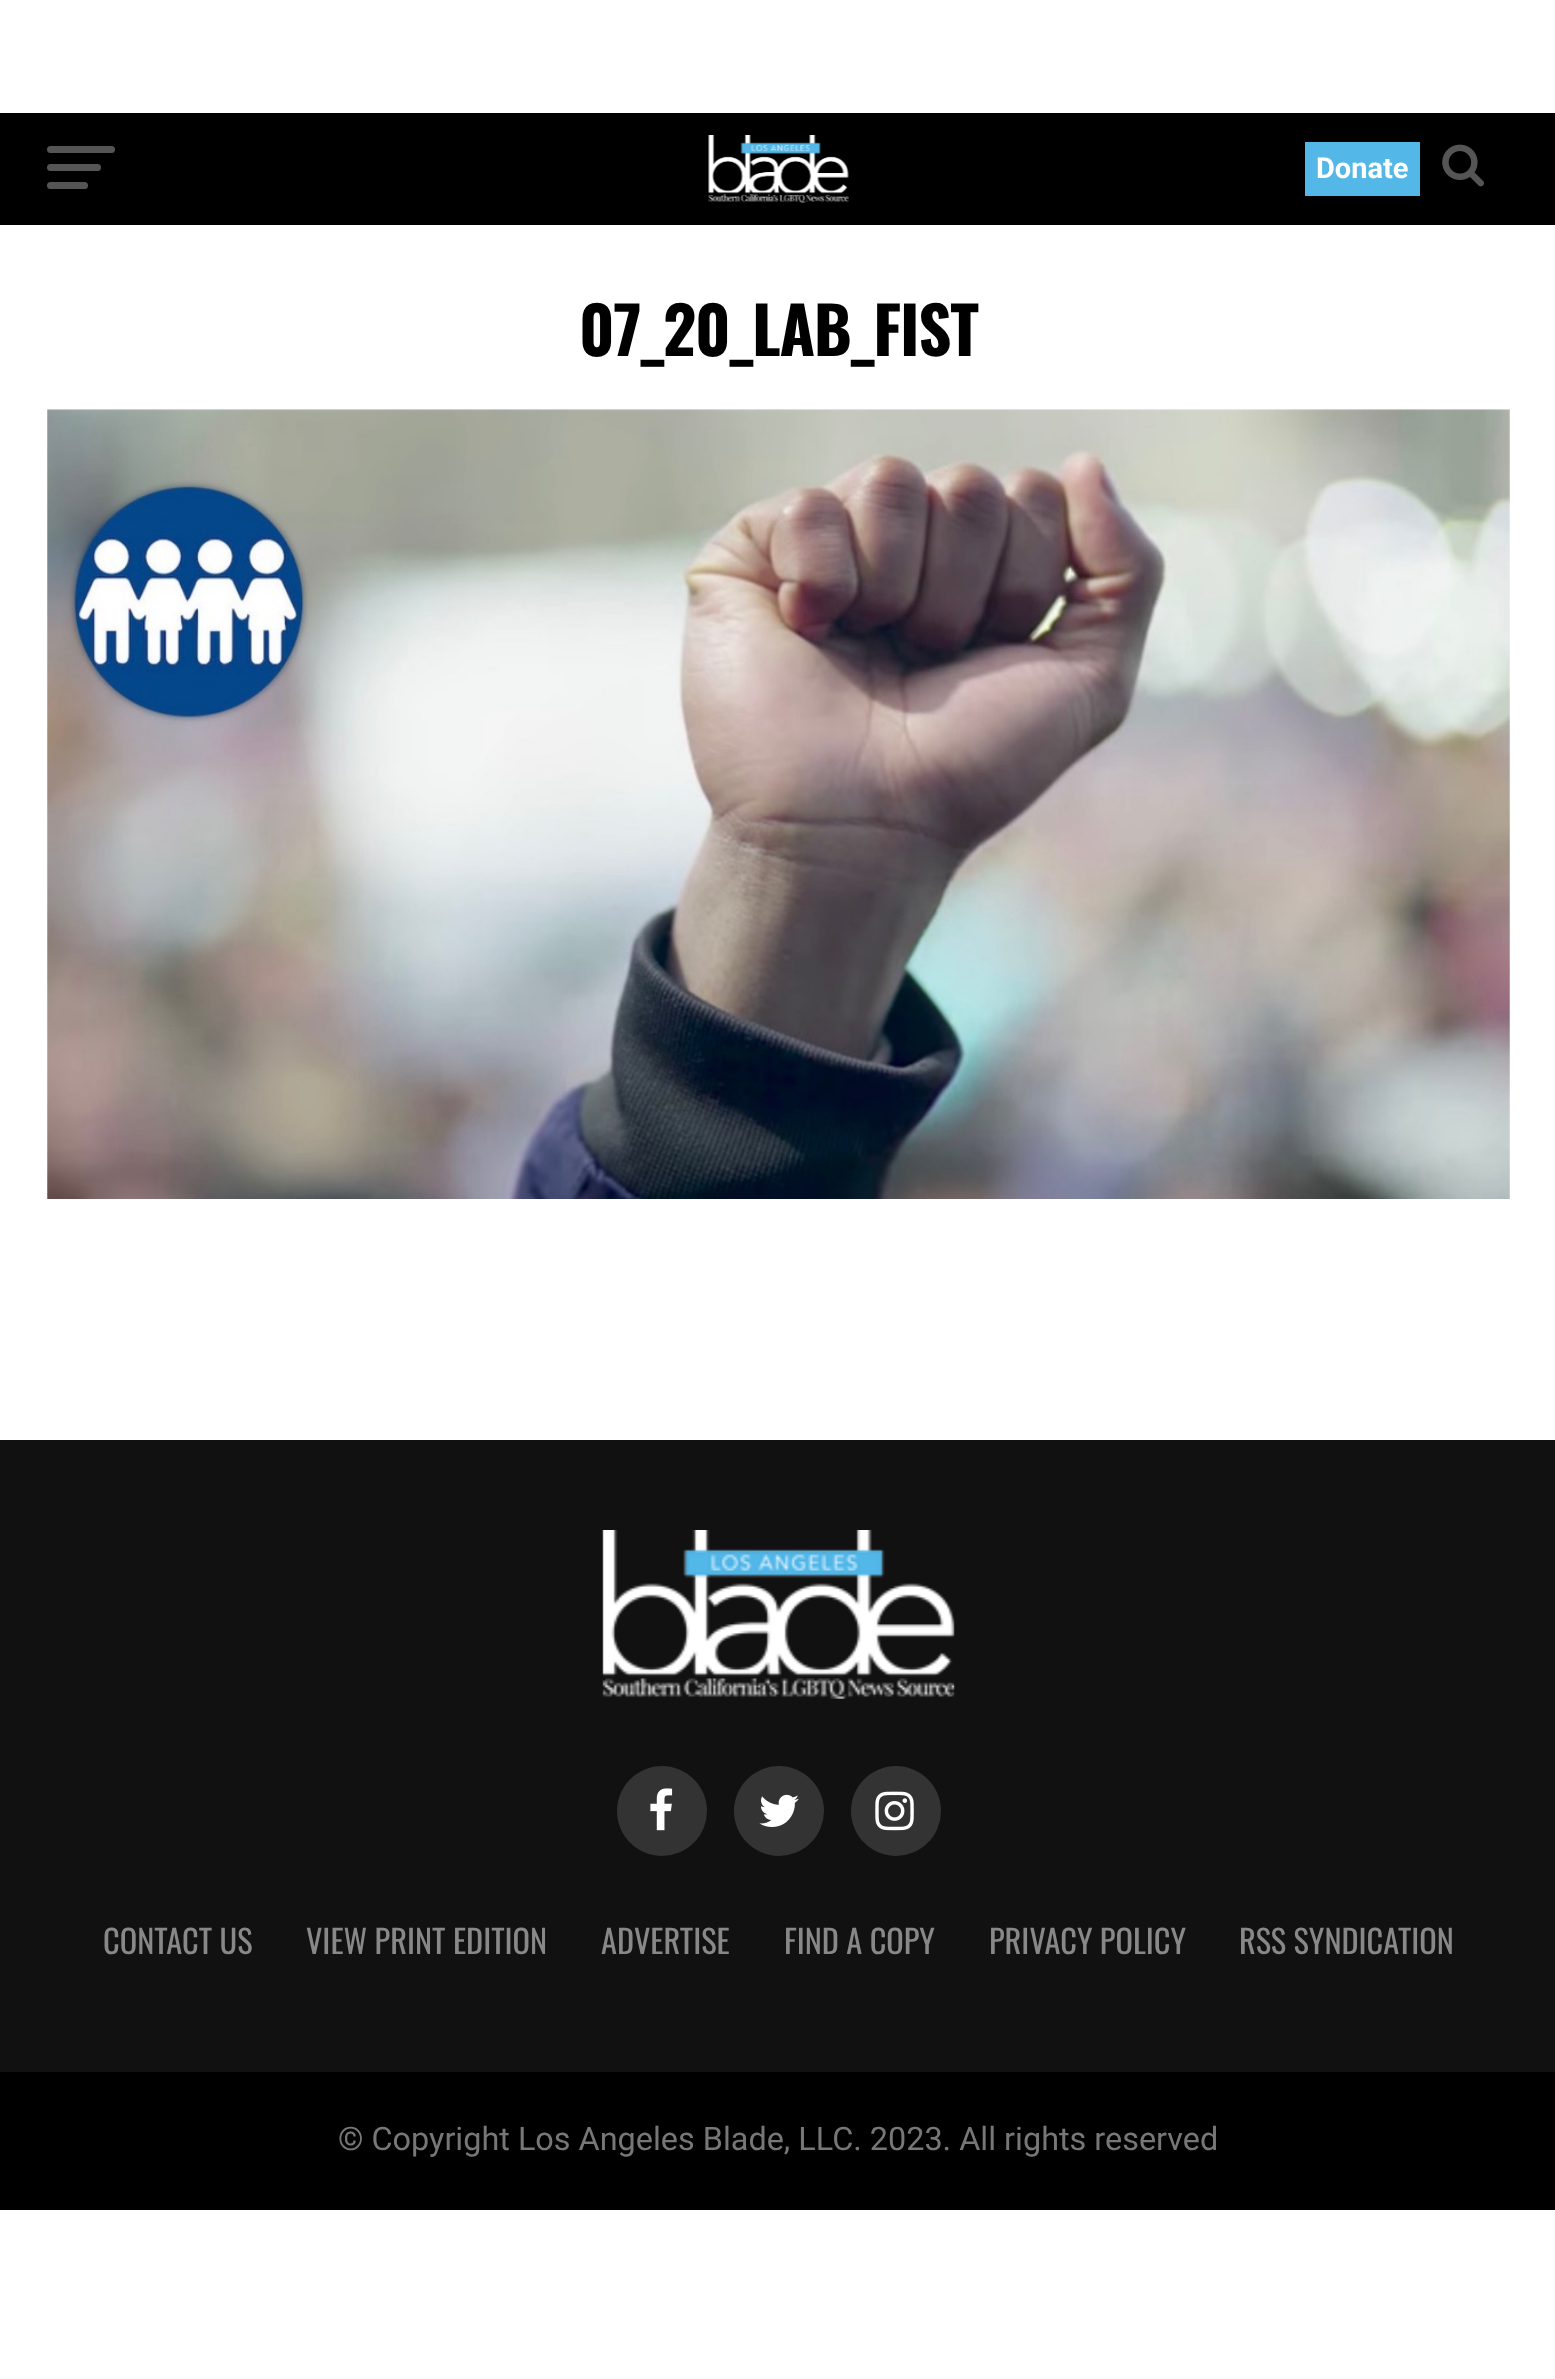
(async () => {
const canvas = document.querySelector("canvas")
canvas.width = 1555
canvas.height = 2379
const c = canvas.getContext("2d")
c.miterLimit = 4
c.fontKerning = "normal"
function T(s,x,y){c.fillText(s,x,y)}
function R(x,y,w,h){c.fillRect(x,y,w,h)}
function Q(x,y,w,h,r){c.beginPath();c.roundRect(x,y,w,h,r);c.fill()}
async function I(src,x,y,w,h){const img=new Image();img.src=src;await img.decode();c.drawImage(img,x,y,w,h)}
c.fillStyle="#fff"
R(0,0,1555,2379)
c.fillStyle="#000"
R(0,113,1555,112)
c.fillStyle="#555"
Q(47,146,68,7,3.5)
Q(47,164,54,7,3.5)
Q(47,182,41,7,3.5)
await I("1.png",708,135,141,68)
c.fillStyle="#53b7e8"
R(1305,142,115,54)
c.font="bold 29px Roboto"
c.fillStyle="#fff"
T("Donate",1316,178)
await I("2.png",1442,144,42,43)
c.letterSpacing="-1.25px"
c.font="bold 64.75px Oswald"
c.fillStyle="#000"
T("07_20_LAB_FIST",579,356)
await I("3.png",47,409,1463,790)
c.fillStyle="#111"
R(0,1440,1555,632)
await I("4.png",602,1530,353,169)
c.fillStyle="#333"
c.beginPath()
c.arc(662,1811,45,0,7)
c.fill()
await I("5.png",650,1788,23,43)
c.beginPath()
c.arc(779,1811,45,0,7)
c.fill()
await I("6.png",759,1794,40,33)
c.beginPath()
c.arc(896,1811,45,0,7)
c.fill()
await I("7.png",875,1791,39,40)
c.letterSpacing="0px"
c.font="32.4px Oswald"
c.fillStyle="#888"
T("CONTACT US",103,1954)
T("VIEW PRINT EDITION",306,1954)
T("ADVERTISE",601,1954)
T("FIND A COPY",784,1954)
T("PRIVACY POLICY",989,1954)
T("RSS SYNDICATION",1239,1954)
c.fillStyle="#000"
R(0,2072,1555,138)
c.font="32.4px Roboto"
c.fillStyle="#777"
T("© Copyright Los Angeles Blade, LLC. 2023. All rights reserved",338,2150)
})()
